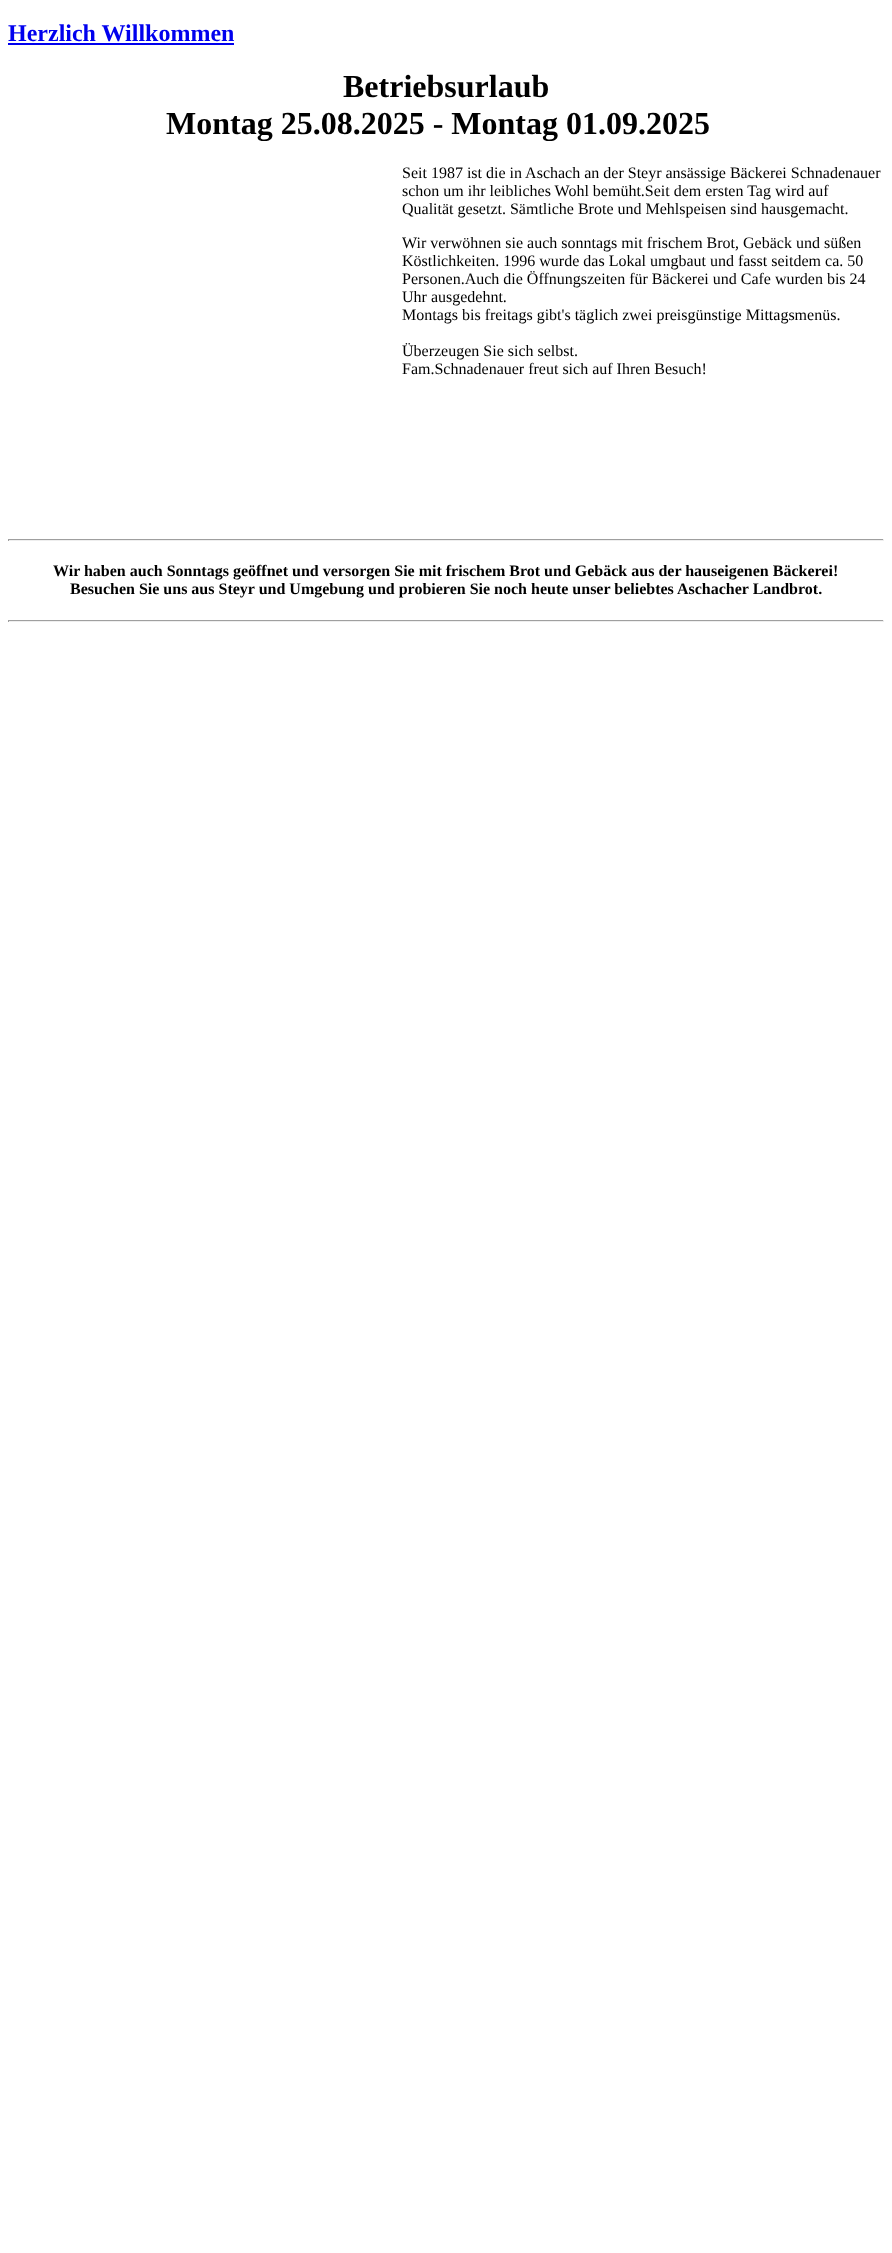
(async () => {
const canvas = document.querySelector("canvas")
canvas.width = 892
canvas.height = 2253
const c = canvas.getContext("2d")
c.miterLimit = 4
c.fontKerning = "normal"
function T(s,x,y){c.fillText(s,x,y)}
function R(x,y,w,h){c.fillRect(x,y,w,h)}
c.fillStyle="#fff"
R(0,0,892,2253)
c.font="bold 24px Liberation Serif"
c.fillStyle="#00e"
T("Herzlich Willkommen",8,41)
R(8,43,226,2)
c.font="bold 32px Liberation Serif"
c.fillStyle="#000"
T("Betriebsurlaub",343,97)
T("Montag 25.08.2025 - Montag 01.09.2025",166,134)
c.font="16px Liberation Serif"
T("Seit 1987 ist die in Aschach an der Steyr ansässige Bäckerei Schnadenauer",402,178)
T("schon um ihr leibliches Wohl bemüht.Seit dem ersten Tag wird auf",402,196)
T("Qualität gesetzt. Sämtliche Brote und Mehlspeisen sind hausgemacht.",402,214)
T("Wir verwöhnen sie auch sonntags mit frischem Brot, Gebäck und süßen",402,248)
T("Köstlichkeiten. 1996 wurde das Lokal umgbaut und fasst seitdem ca. 50",402,266)
T("Personen.Auch die Öffnungszeiten für Bäckerei und Cafe wurden bis 24",402,284)
T("Uhr ausgedehnt.",402,302)
T("Montags bis freitags gibt's täglich zwei preisgünstige Mittagsmenüs.",402,320)
T("Überzeugen Sie sich selbst.",402,356)
T("Fam.Schnadenauer freut sich auf Ihren Besuch!",402,374)
c.fillStyle="#9f9f9f"
R(8,539,876,1)
c.fillStyle="#eee"
R(883,539,1,2)
R(8,540,876,1)
c.fillStyle="#9f9f9f"
R(8,539,1,2)
c.font="bold 16px Liberation Serif"
c.fillStyle="#000"
T("Wir haben auch Sonntags geöffnet und versorgen Sie mit frischem Brot und Gebäck aus der hauseigenen Bäckerei!",53,576)
T("Besuchen Sie uns aus Steyr und Umgebung und probieren Sie noch heute unser beliebtes Aschacher Landbrot.",70,594)
c.fillStyle="#9f9f9f"
R(8,620,876,1)
c.fillStyle="#eee"
R(883,620,1,2)
R(8,621,876,1)
c.fillStyle="#9f9f9f"
R(8,620,1,2)
})()
